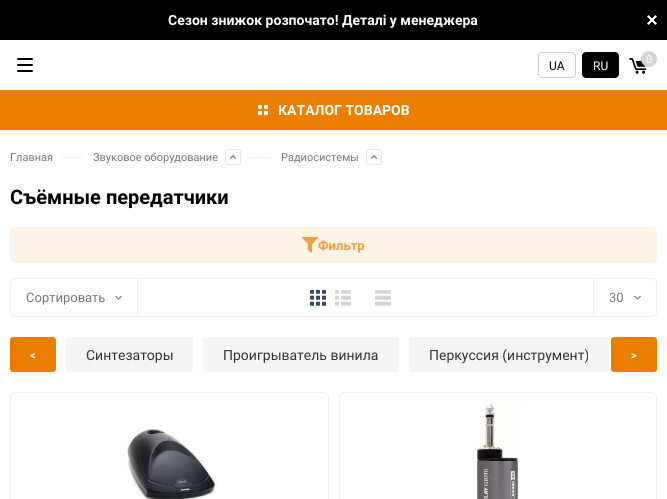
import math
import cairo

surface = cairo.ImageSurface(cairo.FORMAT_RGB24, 667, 499)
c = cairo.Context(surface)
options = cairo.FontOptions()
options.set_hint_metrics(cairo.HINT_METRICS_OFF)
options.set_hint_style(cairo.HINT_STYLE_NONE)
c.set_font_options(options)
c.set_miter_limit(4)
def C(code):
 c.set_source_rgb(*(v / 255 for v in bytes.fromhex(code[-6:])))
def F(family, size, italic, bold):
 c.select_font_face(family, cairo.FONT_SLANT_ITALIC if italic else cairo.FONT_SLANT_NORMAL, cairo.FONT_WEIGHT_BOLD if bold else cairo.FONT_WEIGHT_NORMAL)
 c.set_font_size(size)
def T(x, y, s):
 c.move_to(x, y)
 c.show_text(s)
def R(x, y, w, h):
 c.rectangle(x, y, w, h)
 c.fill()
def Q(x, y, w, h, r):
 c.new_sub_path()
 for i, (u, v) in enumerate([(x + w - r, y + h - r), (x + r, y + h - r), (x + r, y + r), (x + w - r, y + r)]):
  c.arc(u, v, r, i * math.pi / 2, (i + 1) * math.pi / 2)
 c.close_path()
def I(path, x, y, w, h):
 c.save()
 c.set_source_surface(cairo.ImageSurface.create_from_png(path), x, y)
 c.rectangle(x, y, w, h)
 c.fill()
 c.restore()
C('ffffff')
c.paint()
C('000000')
R(0,0,667,40)
F('Roboto',14,0,1)
C('ffffff')
T(168,25,'Сезон знижок розпочато! Деталі у менеджера')
c.new_path()
c.move_to(655.5,15)
c.line_to(657,16.5)
c.line_to(648.5,25)
c.line_to(647,23.5)
c.close_path()
c.fill()
c.new_path()
c.move_to(647,16.5)
c.line_to(648.5,15)
c.line_to(657,23.5)
c.line_to(655.5,25)
c.close_path()
c.fill()
C('f0f0f0')
R(0,130,667,1)
C('000000')
Q(17,64,16,2,1)
c.fill()
Q(17,58,16,2,1)
c.fill()
Q(17,70,16,2,1)
c.fill()
I('1.png',629,58,18,16)
C('d5d5d5')
c.arc(649,59,8,0,2 * math.pi)
c.fill()
F('Roboto',11,0,0)
C('ffffff')
T(646,63,'0')
Q(538.5,52.5,37,25,3.5)
C('cccccc')
c.set_line_width(1)
c.stroke()
F('Roboto',12,0,0)
C('000000')
T(549,70,'UA')
Q(582.5,52.5,36,25,3.5)
c.fill_preserve()
c.stroke()
C('ffffff')
T(593,70,'RU')
C('e97e00')
R(0,90,667,40)
I('2.png',258,105,10,10)
F('Roboto',14,0,1)
C('ffffff')
T(278,115,'КАТАЛОГ ТОВАРОВ')
F('Roboto',11,0,0)
C('777777')
T(10,161,'Главная')
C('f0f0f0')
R(62,157,20,1)
C('777777')
T(93,161,'Звуковое оборудование')
Q(225.5,149.5,15,15,2.5)
C('e7e7e7')
c.stroke()
I('3.png',230,155,6,4)
C('f0f0f0')
R(250,157,20,1)
C('777777')
T(281,161,'Радиосистемы')
Q(366.5,149.5,15,15,2.5)
C('e7e7e7')
c.stroke()
I('3.png',371,155,6,4)
F('Roboto',20,0,1)
C('000000')
T(10,204,'Съёмные передатчики')
C('fdf2e6')
Q(10,227,647,36,5)
c.fill()
I('4.png',302,237,16,16)
F('Roboto',13,0,1)
C('efa145')
T(318,250,'Фильтр')
Q(10.5,278.5,646,38,4.5)
C('f0f0f0')
c.stroke()
R(137,279,1,38)
F('Roboto',13,0,0)
C('777777')
T(26,302,'Сортировать')
I('5.png',115,296,7,4)
I('6.png',310,290,16,16)
I('7.png',335,290,16,16)
I('8.png',375,290,16,16)
C('f0f0f0')
R(593,279,1,38)
C('777777')
T(609,302,'30')
I('9.png',634,296,7,4)
C('e97e00')
Q(10,337,46,35,3)
c.fill()
F('Roboto',11,0,1)
C('ffffff')
T(30,359,'<')
C('f5f5f5')
Q(66,337,127,35,3)
c.fill()
F('Roboto',14,0,0)
C('333333')
T(86,360,'Синтезаторы')
C('f5f5f5')
Q(203,337,196,35,3)
c.fill()
C('333333')
T(223,360,'Проигрыватель винила')
C('f5f5f5')
Q(409,337,200,35,3)
c.fill()
C('333333')
T(429,360,'Перкуссия (инструмент)')
C('e97e00')
Q(611,337,46,35,3)
c.fill()
F('Roboto',11,0,1)
C('ffffff')
T(631,359,'>')
Q(10.5,392.5,318,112,4.5)
C('f0f0f0')
c.stroke()
I('10.png',127,429,90,70)
Q(339.5,392.5,317,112,4.5)
c.stroke()
I('11.png',475,402,45,97)
surface.write_to_png('o.png')
